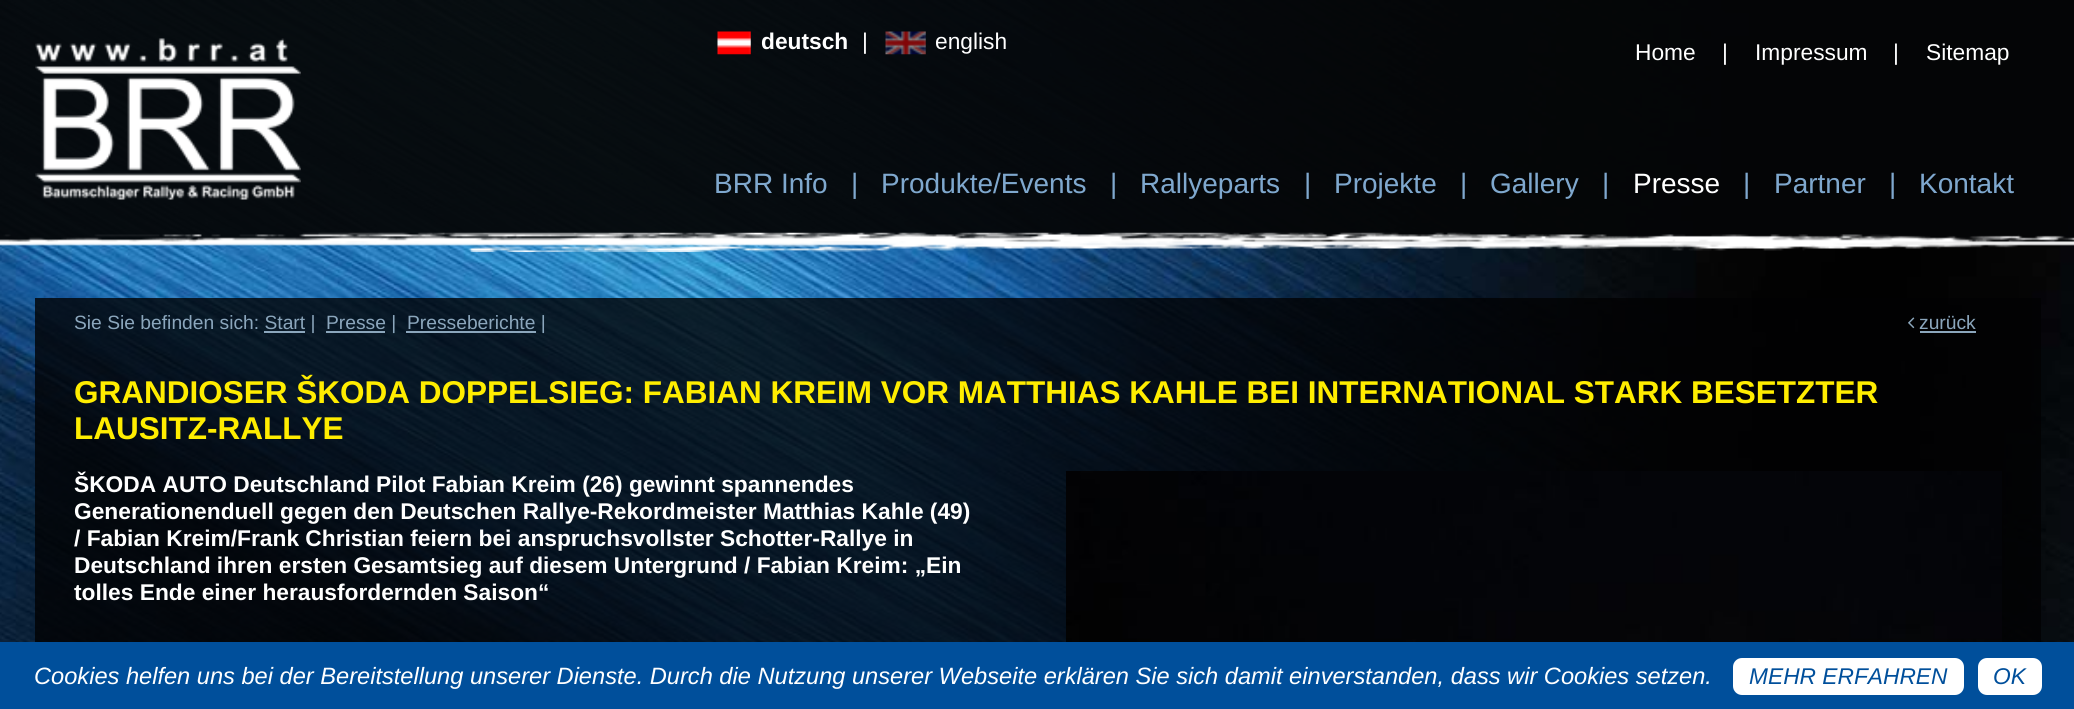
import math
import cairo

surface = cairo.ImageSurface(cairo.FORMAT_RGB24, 2074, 709)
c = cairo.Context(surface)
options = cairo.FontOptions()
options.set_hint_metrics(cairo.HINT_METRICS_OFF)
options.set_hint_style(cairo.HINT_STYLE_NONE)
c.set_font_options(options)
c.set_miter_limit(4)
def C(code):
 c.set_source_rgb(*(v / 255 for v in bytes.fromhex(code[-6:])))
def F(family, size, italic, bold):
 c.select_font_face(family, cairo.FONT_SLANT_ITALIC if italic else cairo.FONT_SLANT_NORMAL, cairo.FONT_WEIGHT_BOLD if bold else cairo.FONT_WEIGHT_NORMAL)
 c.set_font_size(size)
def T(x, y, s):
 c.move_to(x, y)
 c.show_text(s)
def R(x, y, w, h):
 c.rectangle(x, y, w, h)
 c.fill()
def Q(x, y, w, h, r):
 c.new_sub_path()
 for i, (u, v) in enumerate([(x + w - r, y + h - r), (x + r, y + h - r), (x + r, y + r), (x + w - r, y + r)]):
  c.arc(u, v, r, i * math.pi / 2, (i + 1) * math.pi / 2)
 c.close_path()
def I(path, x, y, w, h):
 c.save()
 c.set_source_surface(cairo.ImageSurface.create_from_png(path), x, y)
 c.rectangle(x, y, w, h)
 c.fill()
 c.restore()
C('ffffff')
c.paint()
I('1.png',0,0,2074,642)
c.set_source_rgba(0.02,0.024,0.027,0.95)
R(0,0,2074,242)
I('2.png',35,38,266,162)
I('3.png',717,31,34,24)
F('Liberation Sans',22.75,0,1)
C('ffffff')
T(761,49,'deutsch')
F('Liberation Sans',22.75,0,0)
T(862,49,'|')
I('4.png',885,31,41,24)
T(935,49,'english')
T(1635,60,'Home')
T(1722,60,'|')
T(1755,60,'Impressum')
T(1893,60,'|')
T(1926,60,'Sitemap')
F('Liberation Sans',28,0,0)
C('7fa8ce')
T(714,193,'BRR Info')
T(851,193,'|')
T(881,193,'Produkte/Events')
T(1110,193,'|')
T(1140,193,'Rallyeparts')
T(1304,193,'|')
T(1334,193,'Projekte')
T(1460,193,'|')
T(1490,193,'Gallery')
T(1602,193,'|')
C('ffffff')
T(1633,193,'Presse')
C('7fa8ce')
T(1743,193,'|')
T(1774,193,'Partner')
T(1889,193,'|')
T(1919,193,'Kontakt')
I('5.png',0,232,2074,20)
c.set_source_rgba(0.008,0.008,0.012,0.8)
R(35,298,2006,344)
F('Liberation Sans',19.25,0,0)
C('8ba6bc')
T(74,329,'Sie Sie befinden sich: Start |')
R(326,331,59,2)
T(326,329,'Presse |')
R(406,331,130,2)
T(407,329,'Presseberichte |')
R(264,331,41,2)
I('6.png',1908,317,7,12)
T(1919,329,'zurück')
R(1920,331,56,2)
F('Liberation Sans',31.5,0,1)
C('ffed00')
T(74,403,'GRANDIOSER ŠKODA DOPPELSIEG: FABIAN KREIM VOR MATTHIAS KAHLE BEI INTERNATIONAL STARK BESETZTER')
T(74,439,'LAUSITZ-RALLYE')
F('Liberation Sans',22.75,0,1)
C('ffffff')
T(74,492,'ŠKODA AUTO Deutschland Pilot Fabian Kreim (26) gewinnt spannendes')
T(74,519,'Generationenduell gegen den Deutschen Rallye-Rekordmeister Matthias Kahle (49)')
T(74,546,'/ Fabian Kreim/Frank Christian feiern bei anspruchsvollster Schotter-Rallye in')
T(74,573,'Deutschland ihren ersten Gesamtsieg auf diesem Untergrund / Fabian Kreim: „Ein')
T(74,600,'tolles Ende einer herausfordernden Saison“')
I('7.png',1066,471,936,171)
C('004f9b')
R(0,642,2074,67)
F('Liberation Sans',23.62,1,0)
C('ffffff')
T(34,684,'Cookies helfen uns bei der Bereitstellung unserer Dienste. Durch die Nutzung unserer Webseite erklären Sie sich damit einverstanden, dass wir Cookies setzen.')
Q(1733,658,231,37,9)
c.fill()
F('Liberation Sans',22.75,1,0)
C('004f9b')
T(1749,684,'MEHR ERFAHREN')
C('ffffff')
Q(1978,658,64,37,9)
c.fill()
C('004f9b')
T(1993,684,'OK')
surface.write_to_png('o.png')
